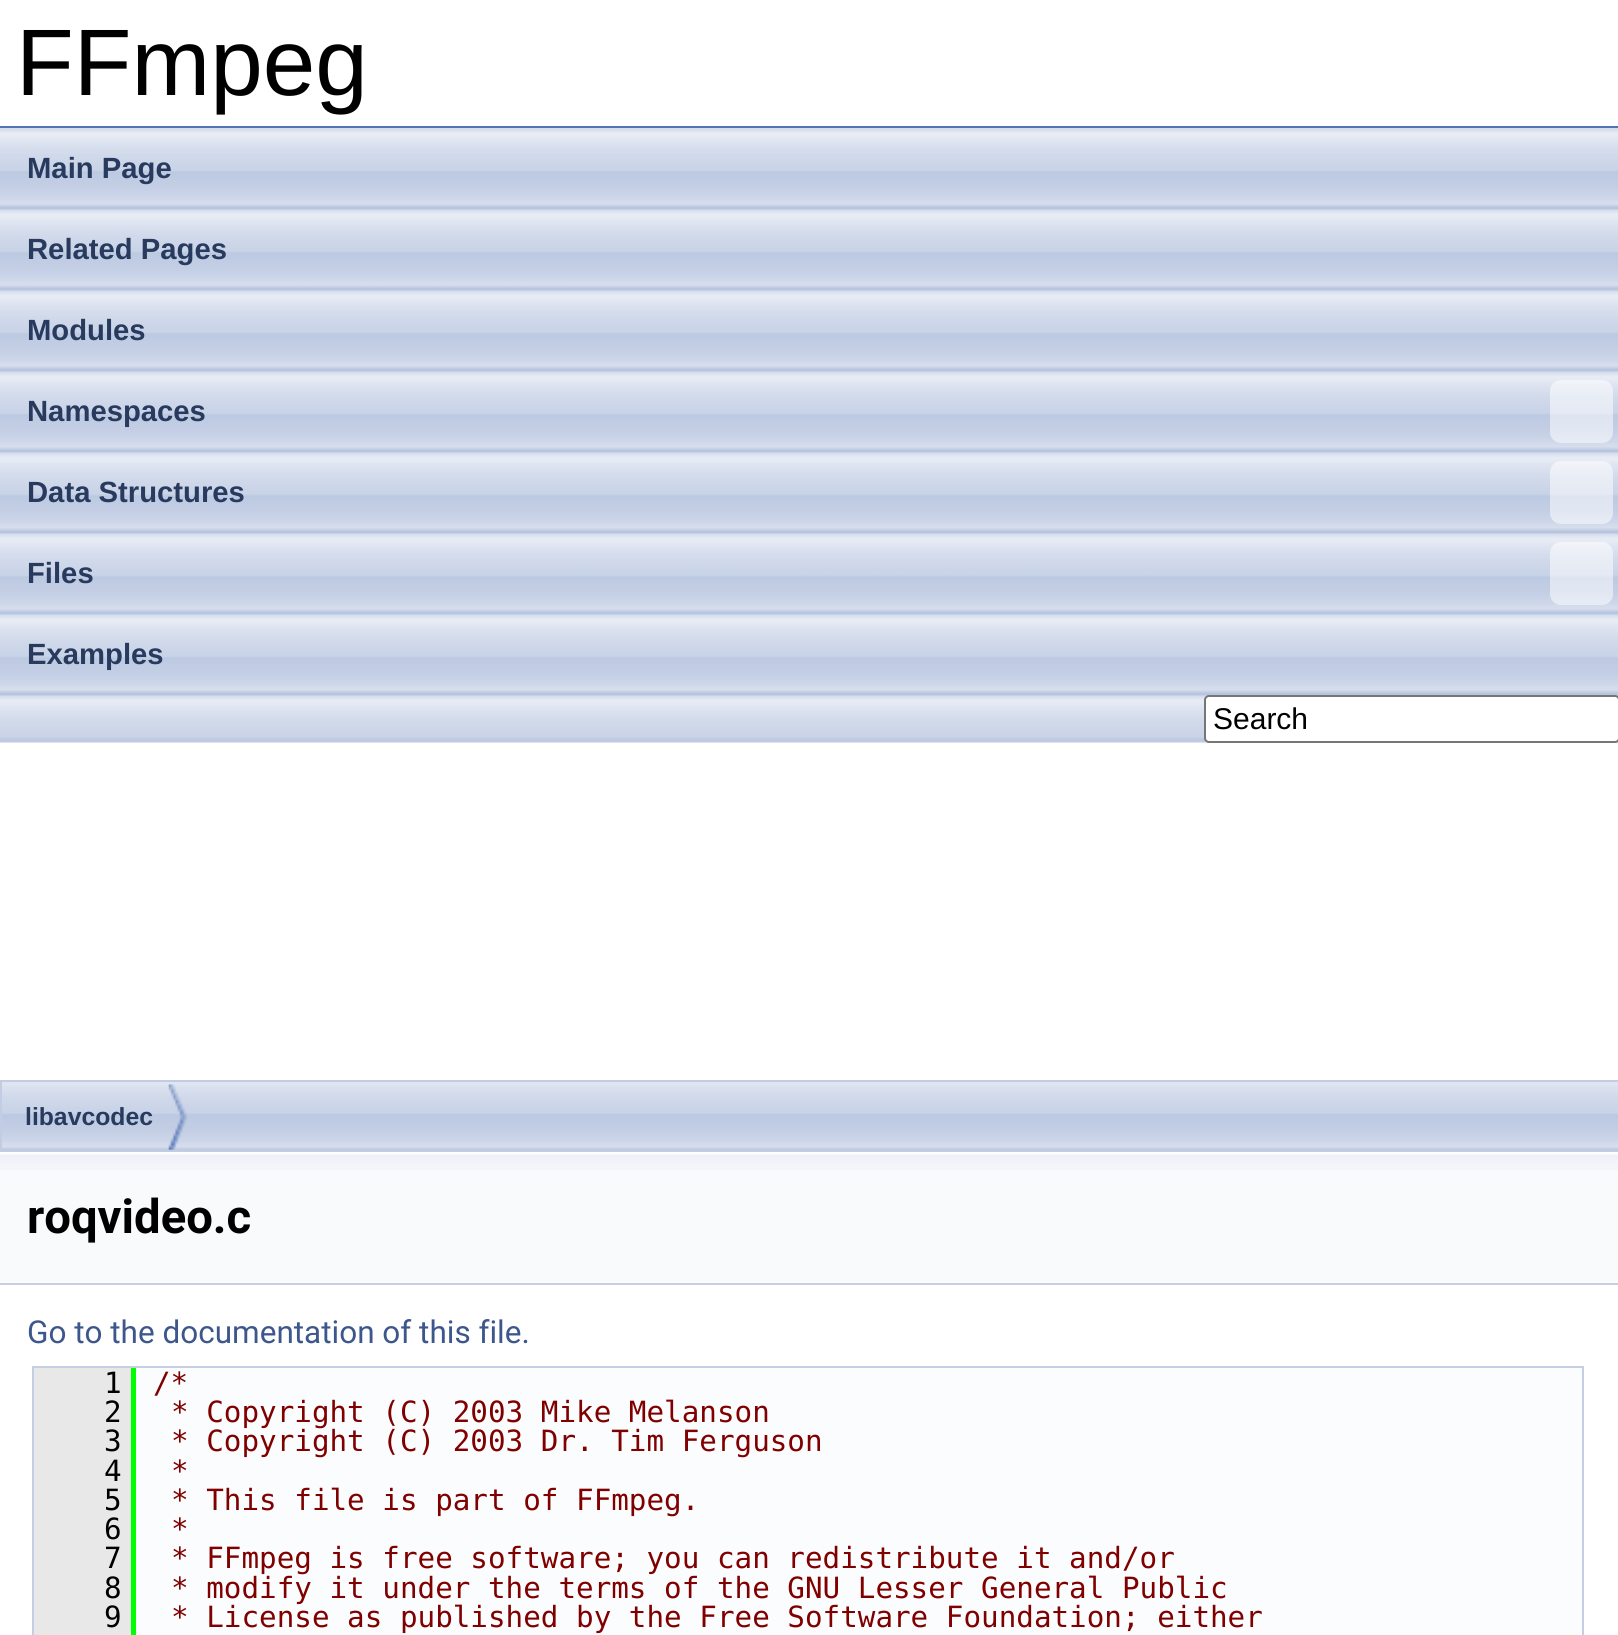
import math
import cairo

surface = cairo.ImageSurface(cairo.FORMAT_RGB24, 1618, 1635)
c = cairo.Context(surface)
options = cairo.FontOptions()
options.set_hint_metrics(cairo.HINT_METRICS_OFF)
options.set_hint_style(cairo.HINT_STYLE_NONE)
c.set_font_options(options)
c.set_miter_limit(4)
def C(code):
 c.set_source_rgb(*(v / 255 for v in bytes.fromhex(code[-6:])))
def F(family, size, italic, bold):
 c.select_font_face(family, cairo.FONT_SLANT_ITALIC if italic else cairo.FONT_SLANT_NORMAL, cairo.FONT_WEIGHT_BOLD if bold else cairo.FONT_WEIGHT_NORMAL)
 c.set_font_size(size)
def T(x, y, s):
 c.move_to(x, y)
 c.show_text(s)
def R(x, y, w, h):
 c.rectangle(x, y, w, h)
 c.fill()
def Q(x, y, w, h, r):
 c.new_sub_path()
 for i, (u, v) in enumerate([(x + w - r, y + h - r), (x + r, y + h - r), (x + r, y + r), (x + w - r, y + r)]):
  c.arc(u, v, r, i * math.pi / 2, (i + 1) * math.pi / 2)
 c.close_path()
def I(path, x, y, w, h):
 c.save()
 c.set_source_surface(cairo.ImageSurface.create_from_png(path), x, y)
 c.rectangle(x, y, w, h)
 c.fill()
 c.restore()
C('ffffff')
c.paint()
C('5373b4')
R(0,126,1618,2)
F('Liberation Sans',94.5,0,0)
C('000000')
T(16,95,'FFmpeg')
I('1.png',0,128,1618,615)
F('Liberation Sans',29.25,0,1)
C('283a5d')
T(27,178,'Main Page')
T(27,259,'Related Pages')
T(27,340,'Modules')
T(27,421,'Namespaces')
c.set_source_rgba(1,1,1,0.5)
Q(1550,380,63,63,11)
c.fill()
C('283a5d')
T(27,502,'Data Structures')
c.set_source_rgba(1,1,1,0.5)
Q(1550,461,63,63,11)
c.fill()
C('283a5d')
T(27,583,'Files')
c.set_source_rgba(1,1,1,0.5)
Q(1550,542,63,63,11)
c.fill()
C('283a5d')
T(27,664,'Examples')
C('ffffff')
Q(1205,696,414,46,4)
c.fill_preserve()
C('767676')
c.stroke()
F('Liberation Sans',30,0,0)
C('000000')
T(1213,729,'Search')
I('2.png',2,1082,1616,68)
c.rectangle(1,1081,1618,70)
C('c2cde4')
c.stroke()
I('3.png',168,1084,19,66)
F('Liberation Sans',24.75,0,1)
C('283a5d')
T(25,1125,'libavcodec')
C('f9fafc')
R(0,1170,1618,113)
I('4.png',0,1152,1618,18)
C('c4cfe5')
R(0,1283,1618,2)
F('Roboto',47.25,0,1)
C('000000')
T(27,1233,'roqvideo.c')
F('Roboto',31.5,0,0)
C('3d578c')
T(27,1343,'Go to the documentation of this file.')
C('fbfcfd')
R(136,1368,1446,267)
c.rectangle(33,1367,1550,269)
C('c4cfe5')
c.stroke()
C('e8e8e8')
R(34,1368,97,261)
F('DejaVu Sans Mono',29.25,0,0)
C('000000')
T(104,1393,'1')
C('00ff00')
R(131,1368,5,266)
C('800000')
T(153,1393,'/*')
C('000000')
T(104,1422,'2')
C('800000')
T(171,1422,'* Copyright (C) 2003 Mike Melanson')
C('000000')
T(104,1451,'3')
C('800000')
T(171,1451,'* Copyright (C) 2003 Dr. Tim Ferguson')
C('000000')
T(104,1481,'4')
C('800000')
T(171,1481,'*')
C('000000')
T(104,1510,'5')
C('800000')
T(171,1510,'* This file is part of FFmpeg.')
C('000000')
T(104,1539,'6')
C('800000')
T(171,1539,'*')
C('000000')
T(104,1568,'7')
C('800000')
T(171,1568,'* FFmpeg is free software; you can redistribute it and/or')
C('000000')
T(104,1598,'8')
C('800000')
T(171,1598,'* modify it under the terms of the GNU Lesser General Public')
C('e8e8e8')
R(34,1629,101,6)
C('00ff00')
R(131,1629,5,6)
C('000000')
T(104,1627,'9')
C('800000')
T(171,1627,'* License as published by the Free Software Foundation; either')
surface.write_to_png('o.png')
